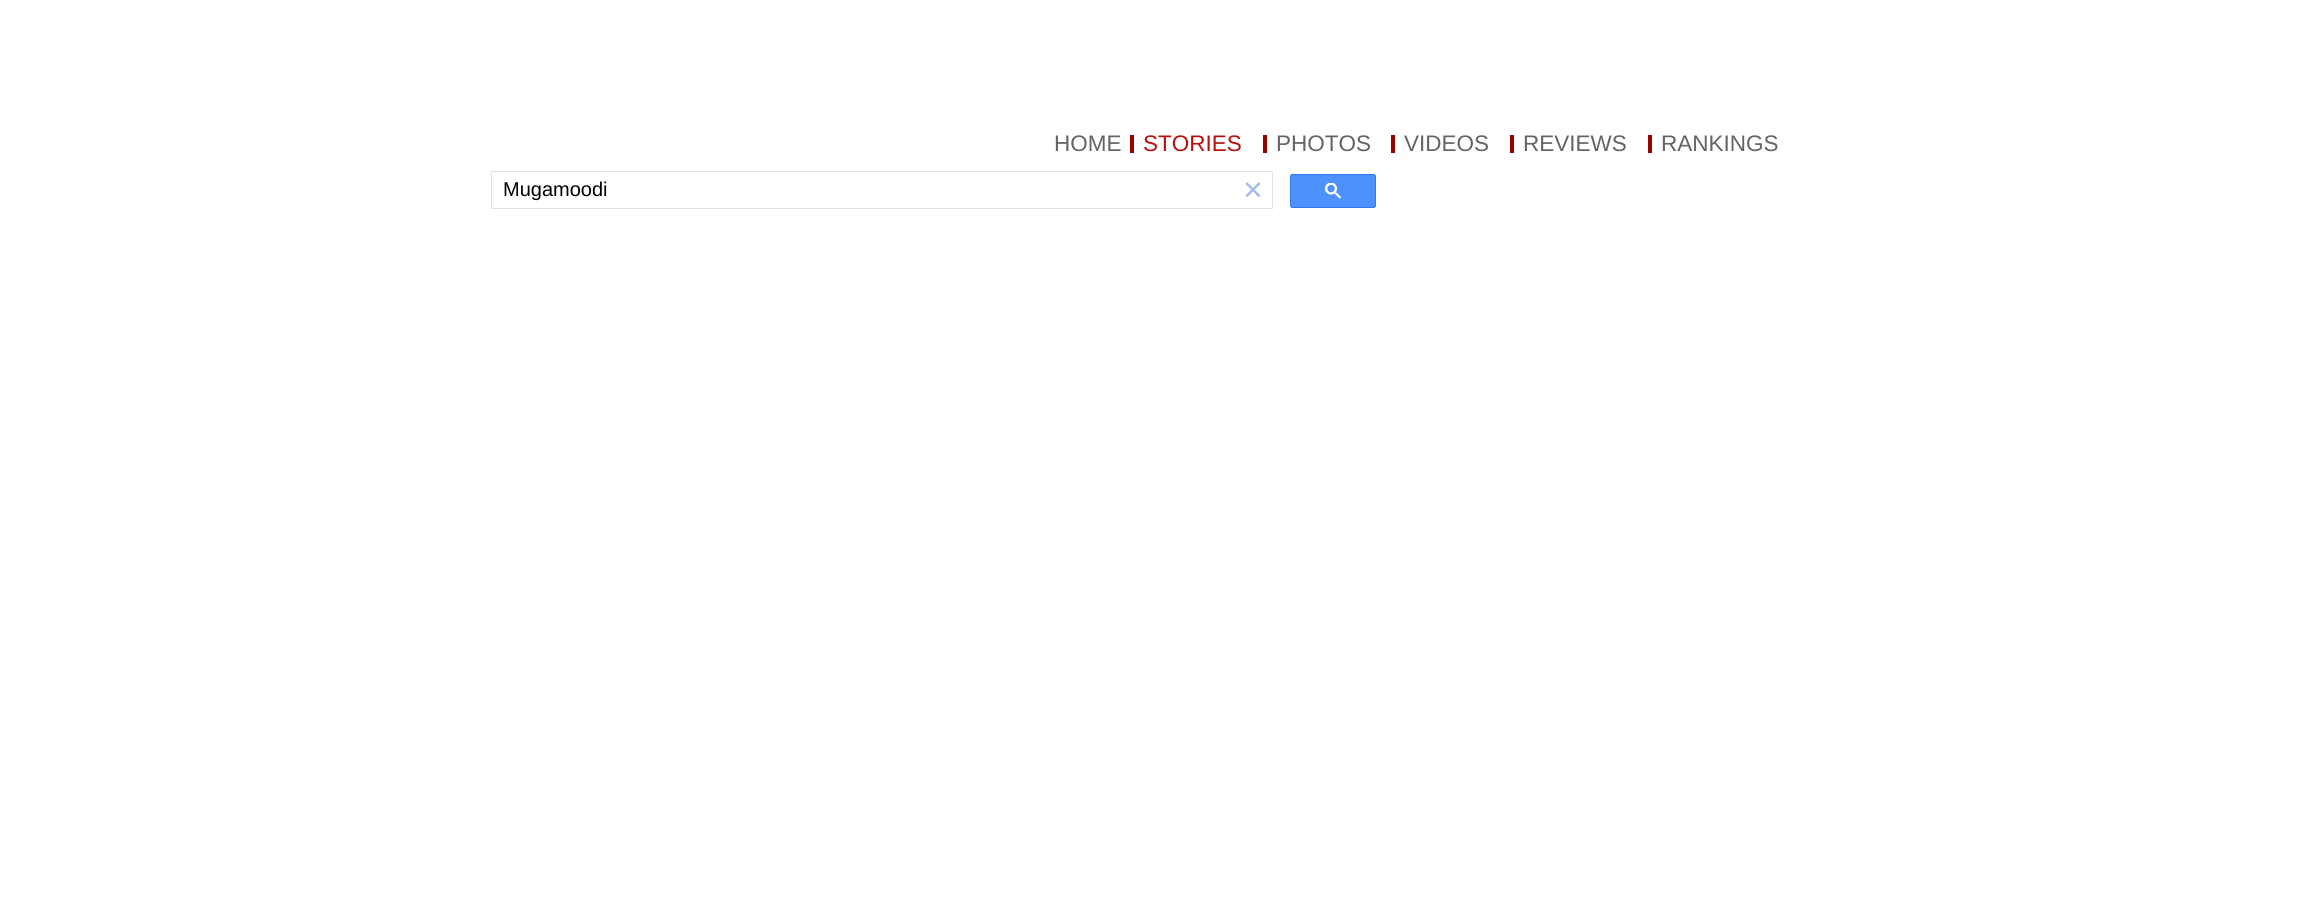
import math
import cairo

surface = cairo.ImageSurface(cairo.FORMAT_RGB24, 2299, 903)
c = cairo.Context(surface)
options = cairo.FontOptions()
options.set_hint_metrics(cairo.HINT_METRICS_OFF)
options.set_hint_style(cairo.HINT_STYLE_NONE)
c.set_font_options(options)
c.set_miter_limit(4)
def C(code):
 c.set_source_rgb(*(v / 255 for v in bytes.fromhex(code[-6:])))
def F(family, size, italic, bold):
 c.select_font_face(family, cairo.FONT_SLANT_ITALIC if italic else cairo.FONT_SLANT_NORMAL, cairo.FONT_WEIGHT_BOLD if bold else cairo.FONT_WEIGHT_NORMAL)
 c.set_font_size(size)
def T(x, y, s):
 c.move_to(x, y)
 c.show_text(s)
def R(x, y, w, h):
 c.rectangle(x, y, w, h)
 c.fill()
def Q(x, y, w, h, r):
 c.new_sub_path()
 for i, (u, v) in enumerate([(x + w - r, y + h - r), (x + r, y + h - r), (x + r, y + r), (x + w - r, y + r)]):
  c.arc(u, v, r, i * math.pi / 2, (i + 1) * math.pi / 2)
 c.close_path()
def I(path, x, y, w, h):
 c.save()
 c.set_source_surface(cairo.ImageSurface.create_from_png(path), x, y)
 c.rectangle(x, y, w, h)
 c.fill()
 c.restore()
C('ffffff')
c.paint()
C('990000')
R(1130,135,4,18)
F('Liberation Sans',22.5,0,0)
C('646464')
T(1054,151,'HOME')
C('990000')
R(1263,135,4,18)
C('b6110c')
T(1143,151,'STORIES')
C('990000')
R(1391,135,4,18)
C('646464')
T(1276,151,'PHOTOS')
C('990000')
R(1510,135,4,18)
C('646464')
T(1404,151,'VIDEOS')
C('990000')
R(1648,135,4,18)
C('646464')
T(1523,151,'REVIEWS')
T(1661,151,'RANKINGS')
c.rectangle(491.5,171.5,781,37)
C('dfe1e5')
c.set_line_width(1)
c.stroke()
F('Liberation Sans',20,0,0)
C('000000')
T(503,196,'Mugamoodi')
F('Liberation Sans',34,0,0)
C('a1b9ed')
T(1243,201,'×')
C('4d90fe')
Q(1290.5,174.5,85,33,2)
c.fill_preserve()
C('3079ed')
c.stroke()
I('1.png',1325,183,16,16)
surface.write_to_png('o.png')
